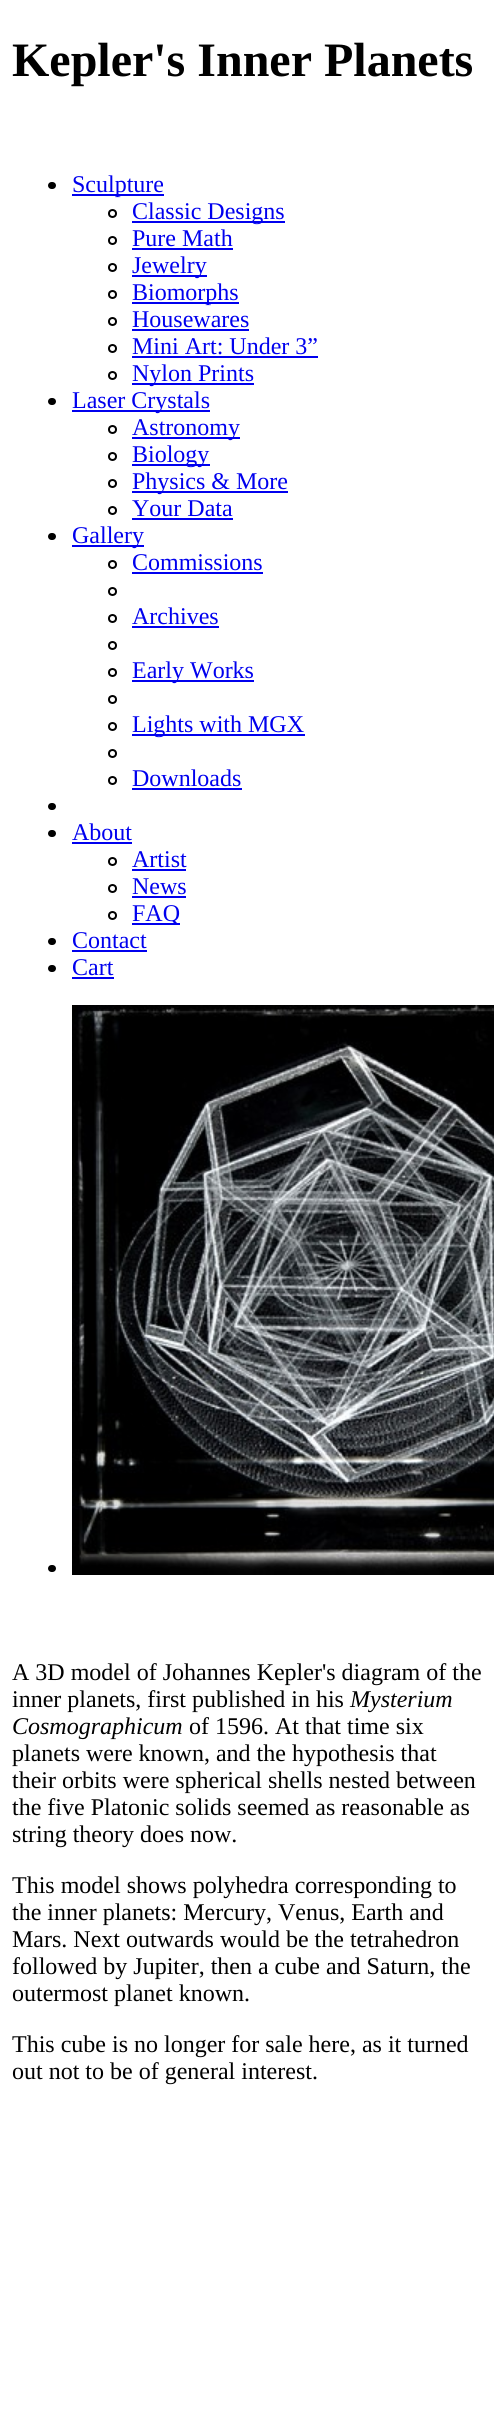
import math
import cairo

surface = cairo.ImageSurface(cairo.FORMAT_RGB24, 494, 2434)
c = cairo.Context(surface)
options = cairo.FontOptions()
options.set_hint_metrics(cairo.HINT_METRICS_OFF)
options.set_hint_style(cairo.HINT_STYLE_NONE)
c.set_font_options(options)
c.set_miter_limit(4)
def C(code):
 c.set_source_rgb(*(v / 255 for v in bytes.fromhex(code[-6:])))
def F(family, size, italic, bold):
 c.select_font_face(family, cairo.FONT_SLANT_ITALIC if italic else cairo.FONT_SLANT_NORMAL, cairo.FONT_WEIGHT_BOLD if bold else cairo.FONT_WEIGHT_NORMAL)
 c.set_font_size(size)
def T(x, y, s):
 c.move_to(x, y)
 c.show_text(s)
def R(x, y, w, h):
 c.rectangle(x, y, w, h)
 c.fill()
def Q(x, y, w, h, r):
 c.new_sub_path()
 for i, (u, v) in enumerate([(x + w - r, y + h - r), (x + r, y + h - r), (x + r, y + r), (x + w - r, y + r)]):
  c.arc(u, v, r, i * math.pi / 2, (i + 1) * math.pi / 2)
 c.close_path()
def I(path, x, y, w, h):
 c.save()
 c.set_source_surface(cairo.ImageSurface.create_from_png(path), x, y)
 c.rectangle(x, y, w, h)
 c.fill()
 c.restore()
C('ffffff')
c.paint()
F('Liberation Serif',48,0,1)
C('000000')
T(12,76,'Kepler\'s Inner Planets')
Q(48,182,8,7,3.5)
c.fill()
C('0000ee')
R(72,194,92,2)
F('Liberation Serif',24,0,0)
T(72,192,'Sculpture')
c.new_path()
c.arc(112.5,213.5,3.5,0,2 * math.pi)
C('000000')
c.stroke()
C('0000ee')
R(132,221,153,2)
T(132,219,'Classic Designs')
c.new_path()
c.arc(112.5,240.5,3.5,0,2 * math.pi)
C('000000')
c.stroke()
C('0000ee')
T(132,246,'Pure Math')
R(132,248,101,2)
c.new_path()
c.arc(112.5,267.5,3.5,0,2 * math.pi)
C('000000')
c.stroke()
C('0000ee')
R(132,275,75,2)
T(132,273,'Jewelry')
c.new_path()
c.arc(112.5,294.5,3.5,0,2 * math.pi)
C('000000')
c.stroke()
C('0000ee')
R(132,302,107,2)
T(132,300,'Biomorphs')
c.new_path()
c.arc(112.5,321.5,3.5,0,2 * math.pi)
C('000000')
c.stroke()
C('0000ee')
T(132,327,'Housewares')
R(132,329,117,2)
c.new_path()
c.arc(112.5,348.5,3.5,0,2 * math.pi)
C('000000')
c.stroke()
C('0000ee')
T(132,354,'Mini Art: Under 3”')
R(132,356,186,2)
c.new_path()
c.arc(112.5,375.5,3.5,0,2 * math.pi)
C('000000')
c.stroke()
C('0000ee')
R(132,383,122,2)
T(132,381,'Nylon Prints')
C('000000')
Q(48,398,8,7,3.5)
c.fill()
C('0000ee')
R(72,410,138,2)
T(72,408,'Laser Crystals')
c.new_path()
c.arc(112.5,429.5,3.5,0,2 * math.pi)
C('000000')
c.stroke()
C('0000ee')
R(132,437,108,2)
T(132,435,'Astronomy')
c.new_path()
c.arc(112.5,456.5,3.5,0,2 * math.pi)
C('000000')
c.stroke()
C('0000ee')
R(132,464,78,2)
T(132,462,'Biology')
c.new_path()
c.arc(112.5,483.5,3.5,0,2 * math.pi)
C('000000')
c.stroke()
C('0000ee')
R(132,491,156,2)
T(132,489,'Physics & More')
c.new_path()
c.arc(112.5,510.5,3.5,0,2 * math.pi)
C('000000')
c.stroke()
C('0000ee')
T(132,516,'Your Data')
R(132,518,101,2)
C('000000')
Q(48,533,8,7,3.5)
c.fill()
C('0000ee')
R(72,545,72,2)
T(72,543,'Gallery')
c.new_path()
c.arc(112.5,564.5,3.5,0,2 * math.pi)
C('000000')
c.stroke()
C('0000ee')
T(132,570,'Commissions')
R(132,572,131,2)
c.new_path()
c.arc(112.5,591.5,3.5,0,2 * math.pi)
C('000000')
c.stroke()
c.arc(112.5,618.5,3.5,0,2 * math.pi)
c.stroke()
C('0000ee')
T(132,624,'Archives')
R(132,626,87,2)
c.new_path()
c.arc(112.5,645.5,3.5,0,2 * math.pi)
C('000000')
c.stroke()
c.arc(112.5,672.5,3.5,0,2 * math.pi)
c.stroke()
C('0000ee')
R(132,680,122,2)
T(132,678,'Early Works')
c.new_path()
c.arc(112.5,699.5,3.5,0,2 * math.pi)
C('000000')
c.stroke()
c.arc(112.5,726.5,3.5,0,2 * math.pi)
c.stroke()
C('0000ee')
R(132,734,173,2)
T(132,732,'Lights with MGX')
c.new_path()
c.arc(112.5,753.5,3.5,0,2 * math.pi)
C('000000')
c.stroke()
c.arc(112.5,780.5,3.5,0,2 * math.pi)
c.stroke()
C('0000ee')
T(132,786,'Downloads')
R(132,788,110,2)
C('000000')
Q(48,803,8,7,3.5)
c.fill()
Q(48,830,8,7,3.5)
c.fill()
C('0000ee')
T(72,840,'About')
R(72,842,60,2)
c.new_path()
c.arc(112.5,861.5,3.5,0,2 * math.pi)
C('000000')
c.stroke()
C('0000ee')
T(132,867,'Artist')
R(132,869,54,2)
c.new_path()
c.arc(112.5,888.5,3.5,0,2 * math.pi)
C('000000')
c.stroke()
C('0000ee')
T(132,894,'News')
R(132,896,54,2)
c.new_path()
c.arc(112.5,915.5,3.5,0,2 * math.pi)
C('000000')
c.stroke()
C('0000ee')
R(132,923,48,2)
T(132,921,'FAQ')
C('000000')
Q(48,938,8,7,3.5)
c.fill()
C('0000ee')
T(72,948,'Contact')
R(72,950,75,2)
C('000000')
Q(48,965,8,7,3.5)
c.fill()
C('0000ee')
T(72,975,'Cart')
R(72,977,42,2)
C('000000')
Q(48,1565,8,7,3.5)
c.fill()
I('1.png',72,1005,422,570)
T(12,1680,'A 3D model of Johannes Kepler\'s diagram of the')
T(12,1707,'inner planets, first published in his')
F('Liberation Serif',24,1,0)
T(350,1707,'Mysterium')
T(12,1734,'Cosmographicum')
F('Liberation Serif',24,0,0)
T(189,1734,'of 1596. At that time six')
T(12,1761,'planets were known, and the hypothesis that')
T(12,1788,'their orbits were spherical shells nested between')
T(12,1815,'the five Platonic solids seemed as reasonable as')
T(12,1842,'string theory does now.')
T(12,1893,'This model shows polyhedra corresponding to')
T(12,1920,'the inner planets: Mercury, Venus, Earth and')
T(12,1947,'Mars. Next outwards would be the tetrahedron')
T(12,1974,'followed by Jupiter, then a cube and Saturn, the')
T(12,2001,'outermost planet known.')
T(12,2052,'This cube is no longer for sale here, as it turned')
T(12,2079,'out not to be of general interest.')
surface.write_to_png('o.png')
